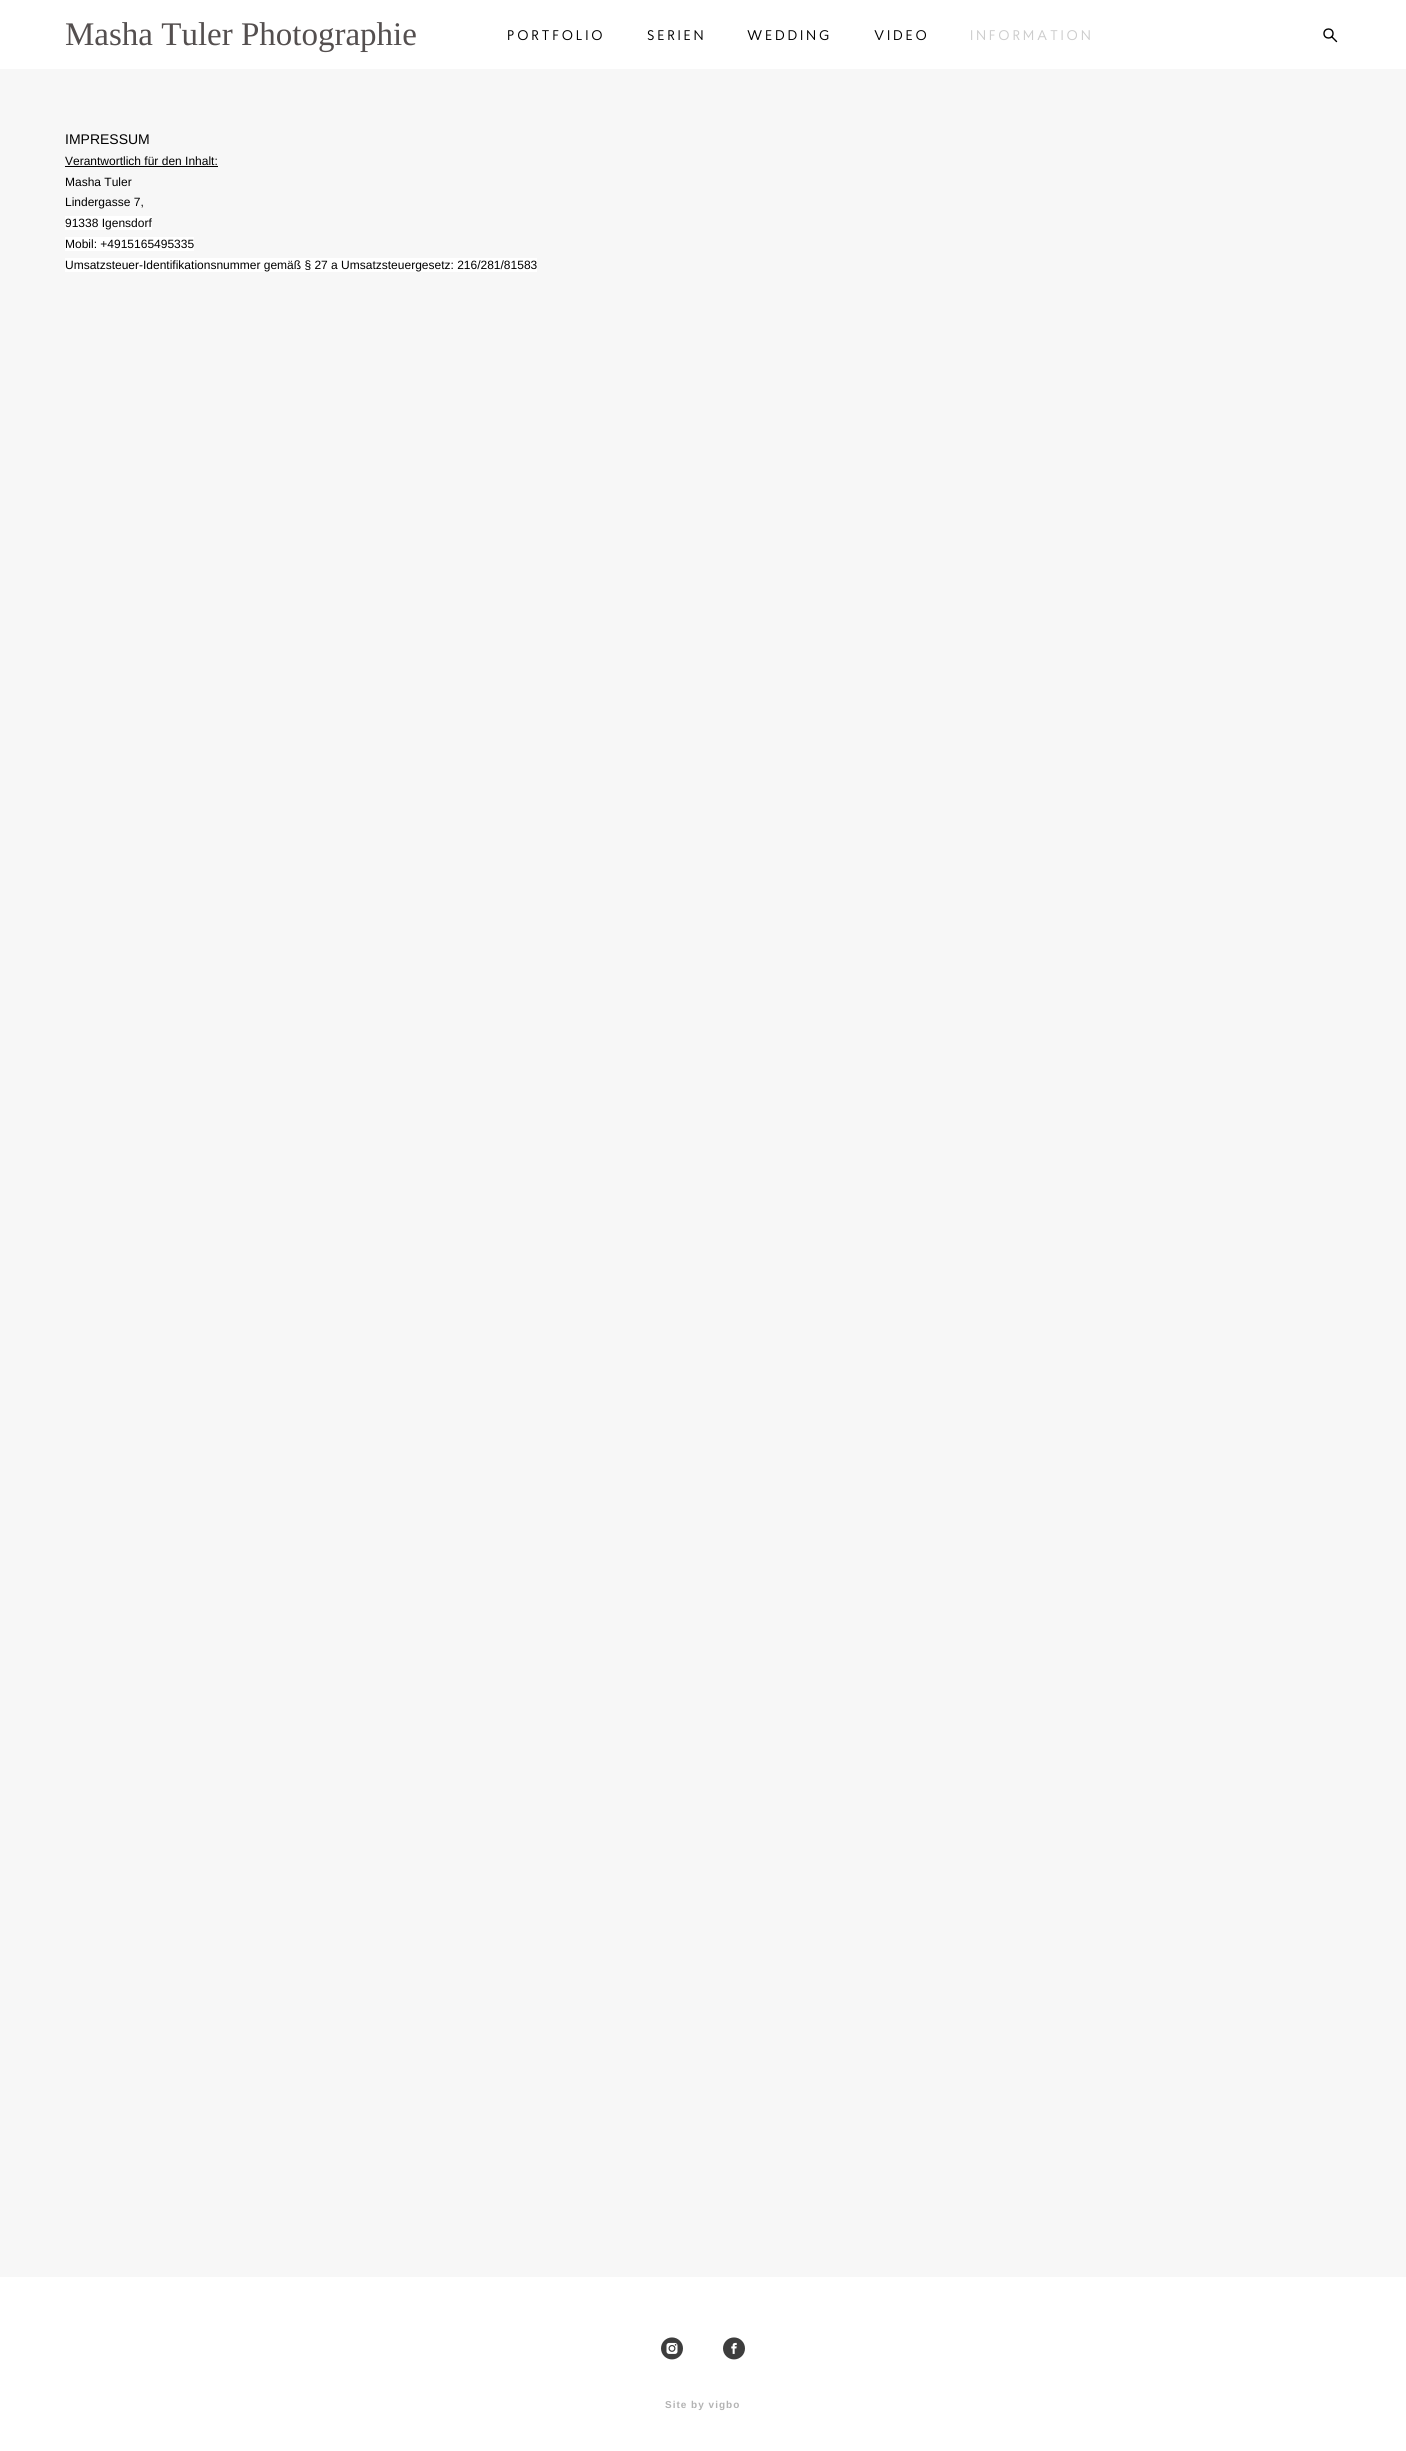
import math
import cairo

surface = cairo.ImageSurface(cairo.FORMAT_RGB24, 1406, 2451)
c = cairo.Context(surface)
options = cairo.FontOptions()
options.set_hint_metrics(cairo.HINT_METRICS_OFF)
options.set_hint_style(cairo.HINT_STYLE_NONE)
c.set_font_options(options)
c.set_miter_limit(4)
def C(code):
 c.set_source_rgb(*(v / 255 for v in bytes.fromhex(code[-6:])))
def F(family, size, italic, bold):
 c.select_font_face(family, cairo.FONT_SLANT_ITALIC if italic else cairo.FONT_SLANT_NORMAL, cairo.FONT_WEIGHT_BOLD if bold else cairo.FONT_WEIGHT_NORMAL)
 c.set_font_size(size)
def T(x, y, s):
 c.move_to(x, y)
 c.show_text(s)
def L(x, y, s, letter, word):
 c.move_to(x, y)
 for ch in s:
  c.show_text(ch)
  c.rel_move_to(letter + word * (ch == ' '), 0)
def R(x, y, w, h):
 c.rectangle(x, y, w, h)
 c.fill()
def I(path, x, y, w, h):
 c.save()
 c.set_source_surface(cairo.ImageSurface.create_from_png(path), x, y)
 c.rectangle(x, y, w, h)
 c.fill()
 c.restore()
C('f7f7f7')
c.paint()
C('ffffff')
R(0,0,1406,69)
F('Liberation Serif',33,0,0)
C('544f4f')
T(65,45,'Masha Tuler Photographie')
F('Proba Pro',14,0,0)
C('000000')
L(507,40,'PORTFOLIO',2.75,0)
L(647,40,'SERIEN',2.75,0)
L(747,40,'WEDDING',2.75,0)
L(874,40,'VIDEO',2.75,0)
C('cccccc')
L(970,40,'INFORMATION',2.75,0)
c.new_path()
c.arc(1328.5,33.5,4.5,0,2 * math.pi)
C('000000')
c.set_line_width(1.4)
c.stroke()
c.new_path()
c.move_to(1331.5,36.5)
c.line_to(1336.5,41.5)
c.set_line_cap(cairo.LINE_CAP_ROUND)
c.set_line_join(cairo.LINE_JOIN_ROUND)
c.stroke()
F('Liberation Sans',14,0,0)
T(65,144,'IMPRESSUM')
F('Liberation Sans',12,0,0)
T(65,165,'Verantwortlich für den Inhalt:')
R(65,166,153,1)
T(65,186,'Masha Tuler')
T(65,206,'Lindergasse 7,')
C('ffffff')
R(65,216,87,14)
C('000000')
T(65,227,'91338 Igensdorf')
C('ffffff')
R(65,237,129,14)
C('000000')
T(65,248,'Mobil: +4915165495335')
C('ffffff')
R(65,258,472,14)
C('000000')
T(65,269,'Umsatzsteuer-Identifikationsnummer gemäß § 27 a Umsatzsteuergesetz: 216/281/81583')
C('ffffff')
R(0,2277,1406,174)
I('1.png',661,2337,22,23)
I('2.png',723,2337,22,23)
F('Liberation Sans',10,0,1)
C('b3b3b3')
L(665,2408,'Site by vigbo',1,0)
surface.write_to_png('o.png')
